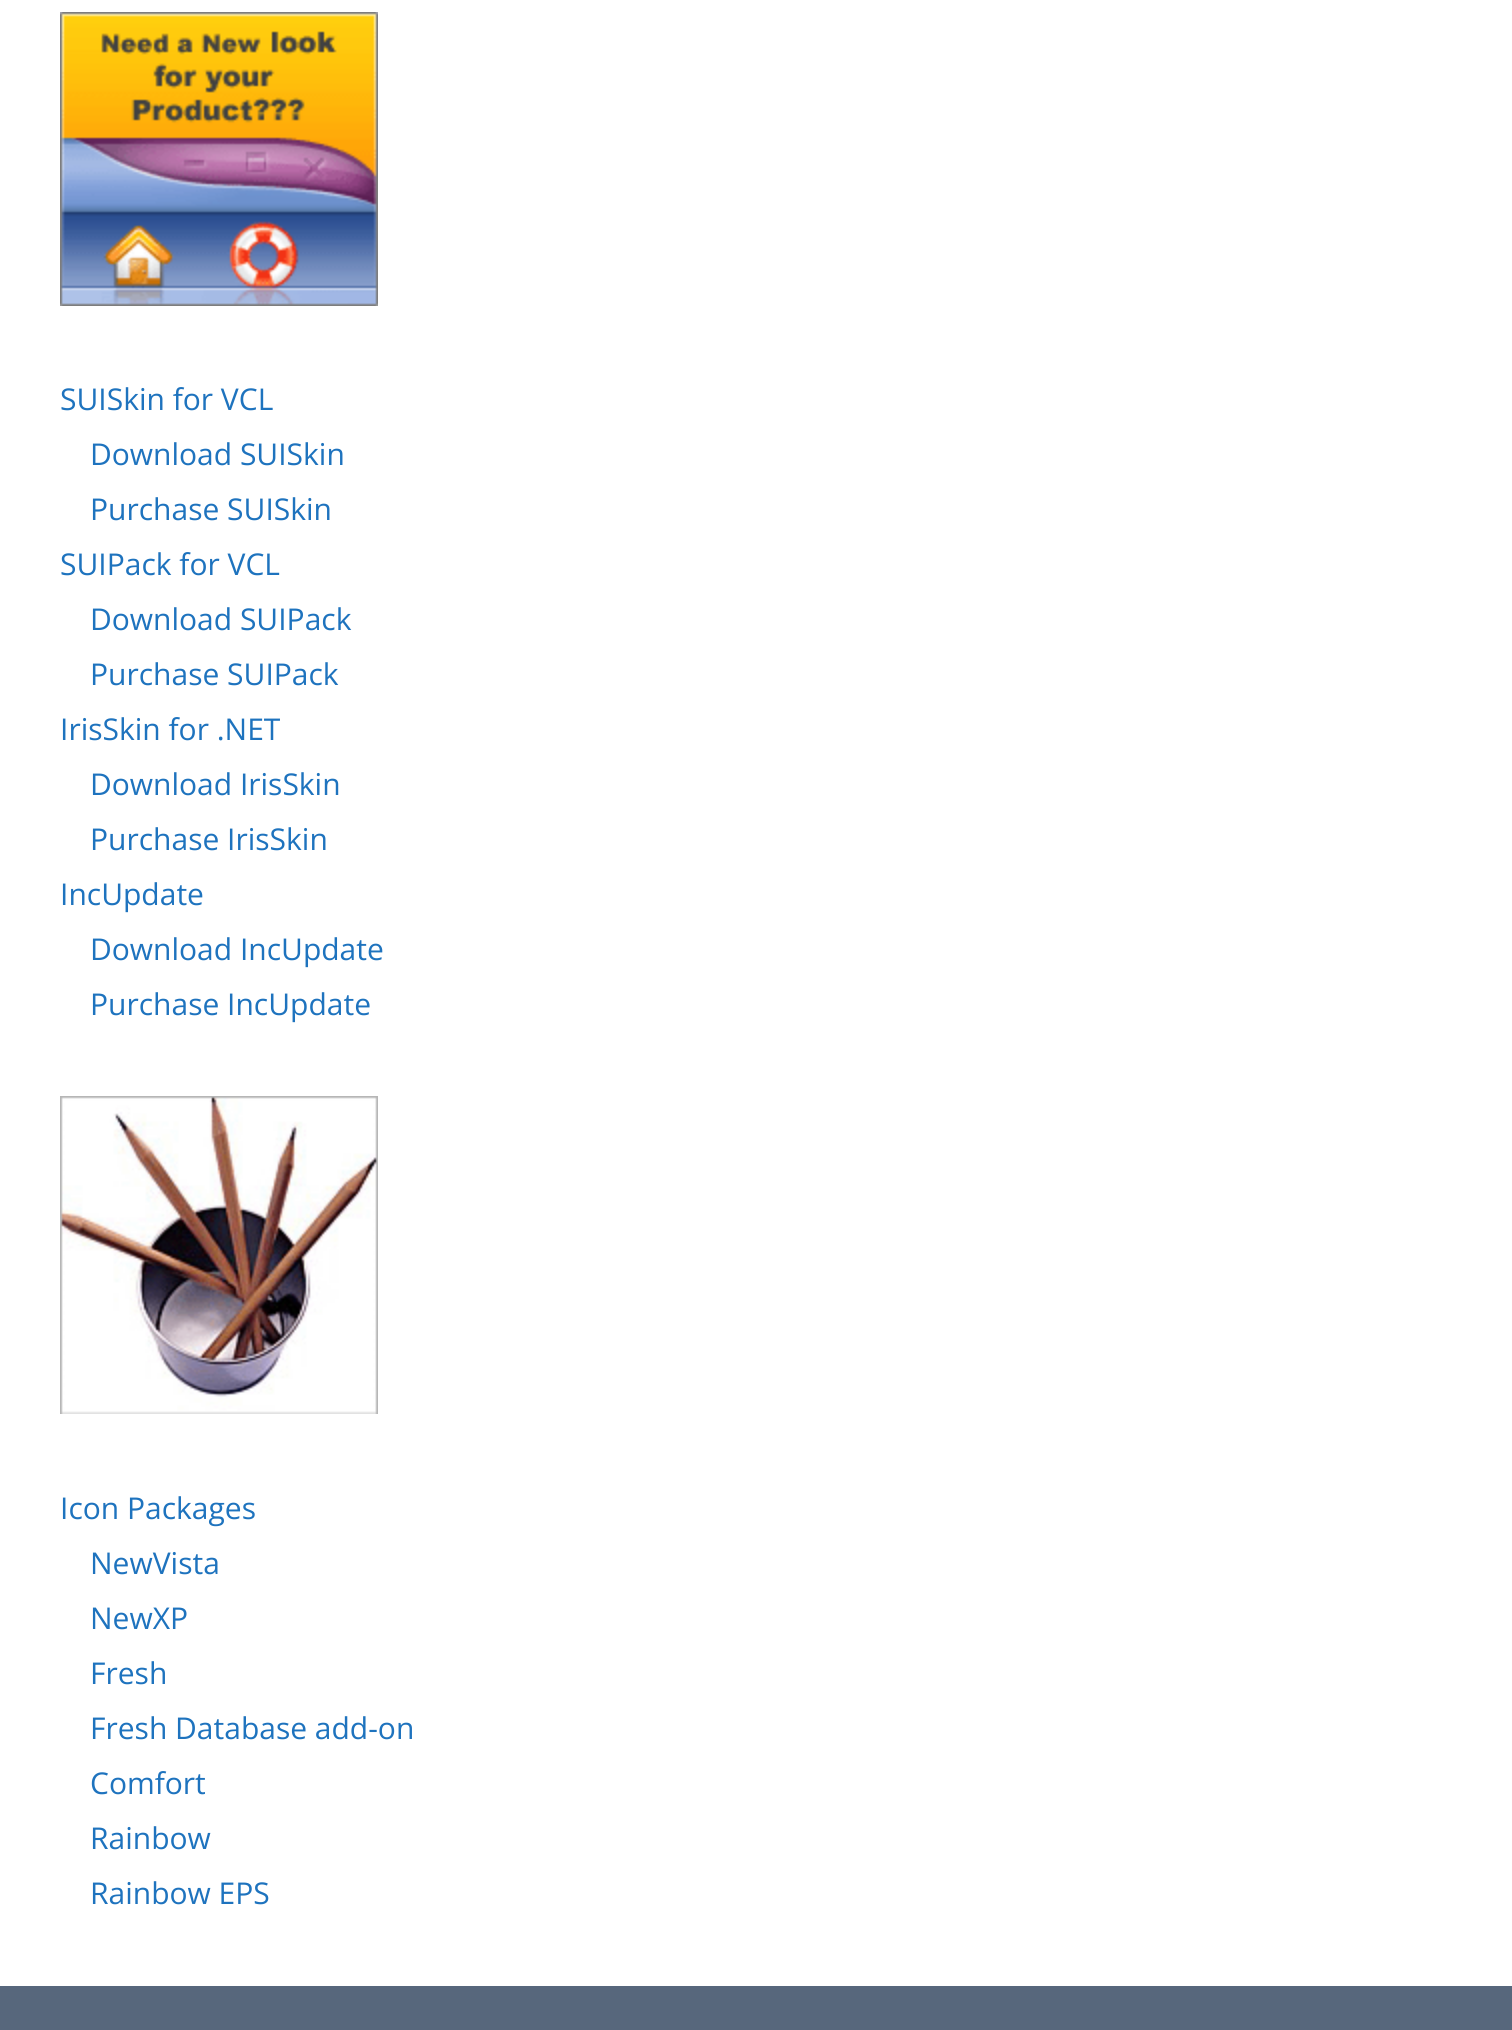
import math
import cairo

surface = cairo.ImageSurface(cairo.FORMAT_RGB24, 1512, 2030)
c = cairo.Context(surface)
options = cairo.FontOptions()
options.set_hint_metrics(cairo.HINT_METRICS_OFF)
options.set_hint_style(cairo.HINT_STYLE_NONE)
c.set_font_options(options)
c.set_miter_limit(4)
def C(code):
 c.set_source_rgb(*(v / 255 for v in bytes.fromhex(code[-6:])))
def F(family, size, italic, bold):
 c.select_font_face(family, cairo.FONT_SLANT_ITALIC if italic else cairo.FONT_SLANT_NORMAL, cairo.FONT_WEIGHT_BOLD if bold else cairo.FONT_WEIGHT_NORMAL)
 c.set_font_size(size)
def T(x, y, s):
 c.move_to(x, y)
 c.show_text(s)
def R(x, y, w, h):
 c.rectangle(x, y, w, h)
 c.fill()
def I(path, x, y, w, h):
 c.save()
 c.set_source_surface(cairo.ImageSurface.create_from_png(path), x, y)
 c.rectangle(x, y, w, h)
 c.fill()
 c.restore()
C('ffffff')
c.paint()
I('1.png',60,12,318,294)
F('Open Sans',30,0,0)
C('1e73be')
T(60,410,'SUISkin for VCL')
T(90,465,'Download SUISkin')
T(90,520,'Purchase SUISkin')
T(60,575,'SUIPack for VCL')
T(90,630,'Download SUIPack')
T(90,685,'Purchase SUIPack')
T(60,740,'IrisSkin for .NET')
T(90,795,'Download IrisSkin')
T(90,850,'Purchase IrisSkin')
T(60,905,'IncUpdate')
T(90,960,'Download IncUpdate')
T(90,1015,'Purchase IncUpdate')
I('2.png',60,1096,318,318)
T(60,1519,'Icon Packages')
T(90,1574,'NewVista')
T(90,1629,'NewXP')
T(90,1684,'Fresh')
T(90,1739,'Fresh Database add-on')
T(90,1794,'Comfort')
T(90,1849,'Rainbow')
T(90,1904,'Rainbow EPS')
C('57677c')
R(0,1986,1512,44)
surface.write_to_png('o.png')
